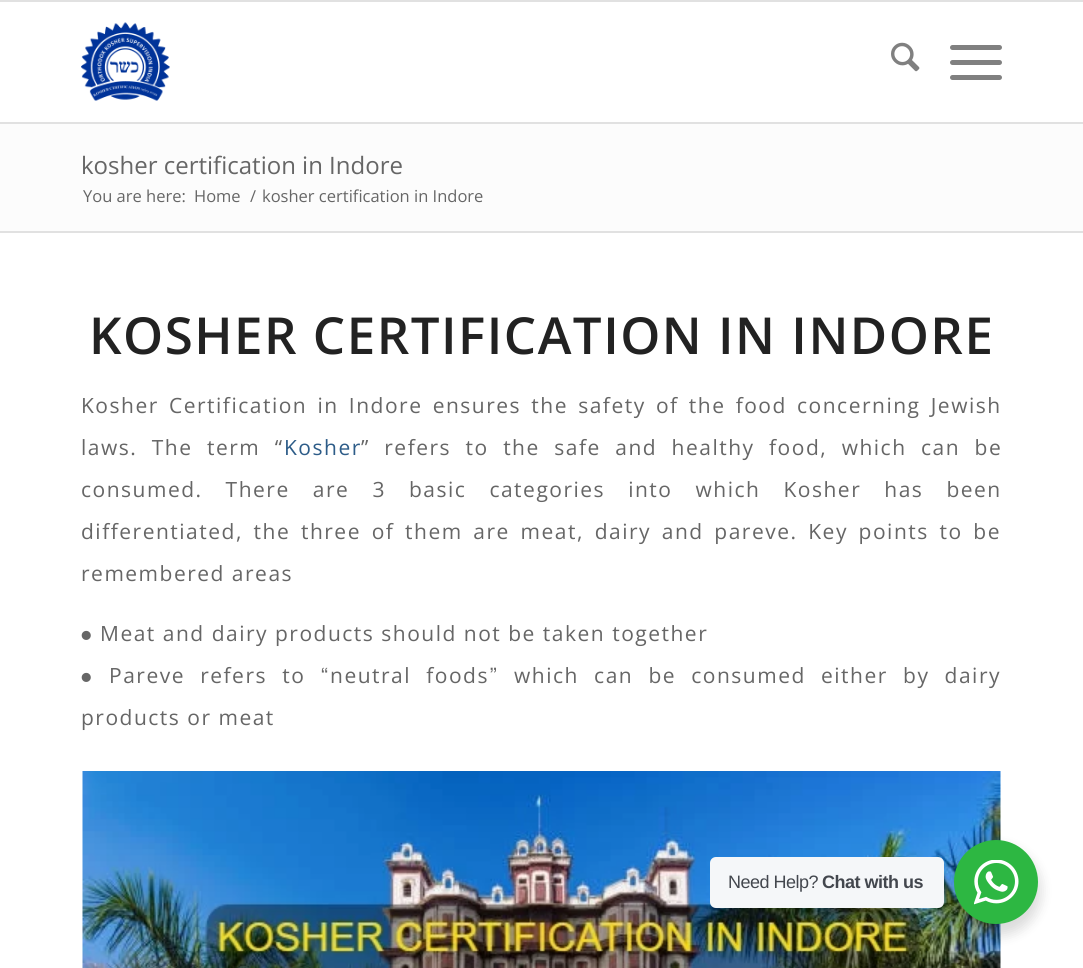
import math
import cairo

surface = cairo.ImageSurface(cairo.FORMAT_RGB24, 1083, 968)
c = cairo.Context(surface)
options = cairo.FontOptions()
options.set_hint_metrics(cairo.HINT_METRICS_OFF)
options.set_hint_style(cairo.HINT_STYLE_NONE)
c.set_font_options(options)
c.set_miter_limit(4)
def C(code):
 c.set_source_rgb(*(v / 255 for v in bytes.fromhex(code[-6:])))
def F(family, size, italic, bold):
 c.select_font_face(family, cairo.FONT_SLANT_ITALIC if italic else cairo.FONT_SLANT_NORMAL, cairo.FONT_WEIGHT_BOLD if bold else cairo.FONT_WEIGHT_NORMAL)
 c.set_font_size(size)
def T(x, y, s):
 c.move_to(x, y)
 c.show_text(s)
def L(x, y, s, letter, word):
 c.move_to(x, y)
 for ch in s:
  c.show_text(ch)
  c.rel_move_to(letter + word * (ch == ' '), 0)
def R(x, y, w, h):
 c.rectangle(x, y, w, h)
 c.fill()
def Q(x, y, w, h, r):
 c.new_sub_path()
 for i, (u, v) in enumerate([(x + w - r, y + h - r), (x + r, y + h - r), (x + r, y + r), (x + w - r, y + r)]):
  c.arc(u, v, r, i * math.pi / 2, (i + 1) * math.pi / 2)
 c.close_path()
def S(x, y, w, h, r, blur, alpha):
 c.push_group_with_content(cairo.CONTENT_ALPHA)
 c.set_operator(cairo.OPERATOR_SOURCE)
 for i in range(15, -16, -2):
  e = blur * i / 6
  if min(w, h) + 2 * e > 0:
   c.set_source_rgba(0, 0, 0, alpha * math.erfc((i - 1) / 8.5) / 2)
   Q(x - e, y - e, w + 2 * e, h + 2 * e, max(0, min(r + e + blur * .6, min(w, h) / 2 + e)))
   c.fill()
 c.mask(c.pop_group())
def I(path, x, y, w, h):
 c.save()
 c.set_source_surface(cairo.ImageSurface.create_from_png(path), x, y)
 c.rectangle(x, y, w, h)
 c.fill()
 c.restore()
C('ffffff')
c.paint()
C('e1e1e1')
R(0,0,1083,2)
R(0,122,1083,2)
I('1.png',81,22,89,79)
I('2.png',891,42,29,30)
C('808080')
Q(950,60,52,5,2.5)
c.fill()
Q(950,45,52,5,2.5)
c.fill()
Q(950,75,52,5,2.5)
c.fill()
C('fcfcfc')
R(0,124,1083,107)
F('Open Sans',24,0,0)
C('666666')
T(81,174,'kosher certification in Indore')
F('Open Sans',16.5,0,0)
T(83,202,'You are here:')
T(194,202,'Home')
T(250,202,'/')
T(262,202,'kosher certification in Indore')
C('e1e1e1')
R(0,231,1083,2)
F('Open Sans SemiBold',51,0,0)
C('222222')
L(89,354,'KOSHER CERTIFICATION IN INDORE',1.5,0)
F('Open Sans',21,0,0)
C('666666')
L(81,413,'Kosher Certification in Indore ensures the safety of the food concerning Jewish',1.5,3.25)
L(81,455,'laws. The term “',1.5,7.5)
C('2d5c88')
L(284,455,'Kosher',1.5,0)
C('666666')
L(361,455,'” refers to the safe and healthy food, which can be',1.5,7.5)
L(81,497,'consumed. There are 3 basic categories into which Kosher has been',1.5,16.1)
L(81,539,'differentiated, the three of them are meat, dairy and pareve. Key points to be',1.5,3.75)
L(81,581,'remembered areas',1.5,0)
F('FreeSans',21,0,0)
L(81,641,'⦁',1.5,0)
F('Open Sans',21,0,0)
L(100,641,'Meat and dairy products should not be taken together',1.5,0)
F('FreeSans',21,0,0)
L(81,683,'⦁',1.5,0)
F('Open Sans',21,0,0)
L(109,683,'Pareve refers to',1.5,8.25)
F('FreeSans',21,0,0)
L(320,683,'“',1.5,0)
F('Open Sans',21,0,0)
L(330,683,'neutral foods',1.5,8.25)
F('FreeSans',21,0,0)
L(489,683,'”',1.5,0)
F('Open Sans',21,0,0)
L(514,683,'which can be consumed either by dairy',1.5,8.25)
L(81,725,'products or meat',1.5,0)
I('3.png',82,771,919,197)
C('000000')
S(951,846,90,90,45,6,.14)
C('f5f7f9')
Q(710,857,234,51,6)
c.fill()
F('Liberation Sans',18,0,0)
C('43474e')
L(728,888,'Need Help?',-.5,0)
F('Liberation Sans',18,0,1)
L(822,888,'Chat with us',-.5,0)
C('2db742')
c.new_path()
c.arc(996,882,42,0,2 * math.pi)
c.fill()
I('4.png',974,860,45,45)
surface.write_to_png('o.png')
